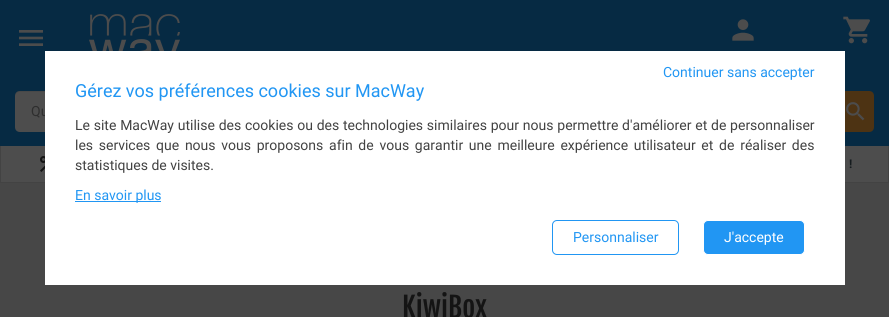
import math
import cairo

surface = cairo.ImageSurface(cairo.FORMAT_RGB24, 889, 317)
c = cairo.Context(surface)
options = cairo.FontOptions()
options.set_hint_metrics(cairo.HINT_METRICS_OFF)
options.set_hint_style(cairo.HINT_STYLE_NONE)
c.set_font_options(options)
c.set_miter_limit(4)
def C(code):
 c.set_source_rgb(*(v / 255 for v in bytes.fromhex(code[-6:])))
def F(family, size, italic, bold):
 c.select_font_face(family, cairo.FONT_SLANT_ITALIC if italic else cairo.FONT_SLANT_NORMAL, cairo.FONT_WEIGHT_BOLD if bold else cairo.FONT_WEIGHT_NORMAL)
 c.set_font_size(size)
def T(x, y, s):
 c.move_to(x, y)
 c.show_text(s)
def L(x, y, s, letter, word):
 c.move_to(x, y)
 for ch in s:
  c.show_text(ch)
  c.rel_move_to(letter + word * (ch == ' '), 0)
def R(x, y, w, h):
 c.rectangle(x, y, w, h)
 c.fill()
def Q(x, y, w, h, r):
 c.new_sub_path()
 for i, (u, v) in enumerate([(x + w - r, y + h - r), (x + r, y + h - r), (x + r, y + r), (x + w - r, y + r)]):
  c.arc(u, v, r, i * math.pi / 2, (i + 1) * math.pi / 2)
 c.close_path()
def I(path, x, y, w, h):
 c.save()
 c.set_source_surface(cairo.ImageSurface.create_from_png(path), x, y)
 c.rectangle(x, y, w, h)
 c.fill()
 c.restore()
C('474747')
c.paint()
C('062a43')
R(0,0,889,146)
C('4d4d4d')
c.new_path()
c.move_to(20,91)
c.line_to(836,91)
c.line_to(836,132)
c.line_to(20,132)
c.curve_to(17,132,15,130,15,127)
c.line_to(15,96)
c.curve_to(15,93,17,91,20,91)
c.close_path()
c.fill()
c.set_source_rgba(0,0,0,0.07)
c.new_path()
c.move_to(20,92)
c.line_to(836,92)
c.line_to(836,91)
c.line_to(20,91)
c.curve_to(17,91,15,93,15,96)
c.line_to(15,97)
c.curve_to(15,94,17,92,20,92)
c.close_path()
c.fill()
F('Roboto',14,0,0)
C('2e2e2e')
T(31,116,'Qu')
C('4d3313')
c.new_path()
c.move_to(836,91)
c.line_to(869,91)
c.curve_to(872,91,874,93,874,96)
c.line_to(874,127)
c.curve_to(874,130,872,132,869,132)
c.line_to(836,132)
c.close_path()
c.fill()
C('4d4d4d')
R(1,146,887,36)
C('434343')
R(0,182,889,1)
C('ffffff')
R(45,51,800,234)
F('Roboto',18,0,0)
C('2196f3')
T(75,97,'Gérez vos préférences cookies sur MacWay')
F('Roboto',14,0,0)
T(663,77,'Continuer sans accepter')
Q(552.5,220.5,126,34,4.5)
c.set_line_width(1)
c.stroke()
T(573,242,'Personnaliser')
Q(703.5,220.5,101,34,4.5)
c.fill_preserve()
C('ffffff')
c.stroke()
T(724,242,'J\'accepte')
C('424242')
L(75,130,'Le site MacWay utilise des cookies ou des technologies similaires pour nous permettre d\'améliorer et de personnaliser',0,.3)
L(75,150,'les services que nous vous proposons afin de vous garantir une meilleure expérience utilisateur et de réaliser des',0,2.25)
T(75,170,'statistiques de visites.')
C('2196f3')
R(75,201,86,1)
T(75,200,'En savoir plus')
I('1.png',19,30,24,16)
I('2.png',89,14,91,37)
I('3.png',732,19,22,22)
I('4.png',843,16,27,28)
I('5.png',846,102,19,19)
C('434343')
R(0,146,1,37)
I('6.png',40,156,5,16)
R(888,146,1,37)
F('Roboto',12,0,1)
C('151b1e')
T(849,168,'!')
F('Fjalla One',28,0,0)
C('141414')
T(402,318,'KiwiBox')
surface.write_to_png('o.png')
